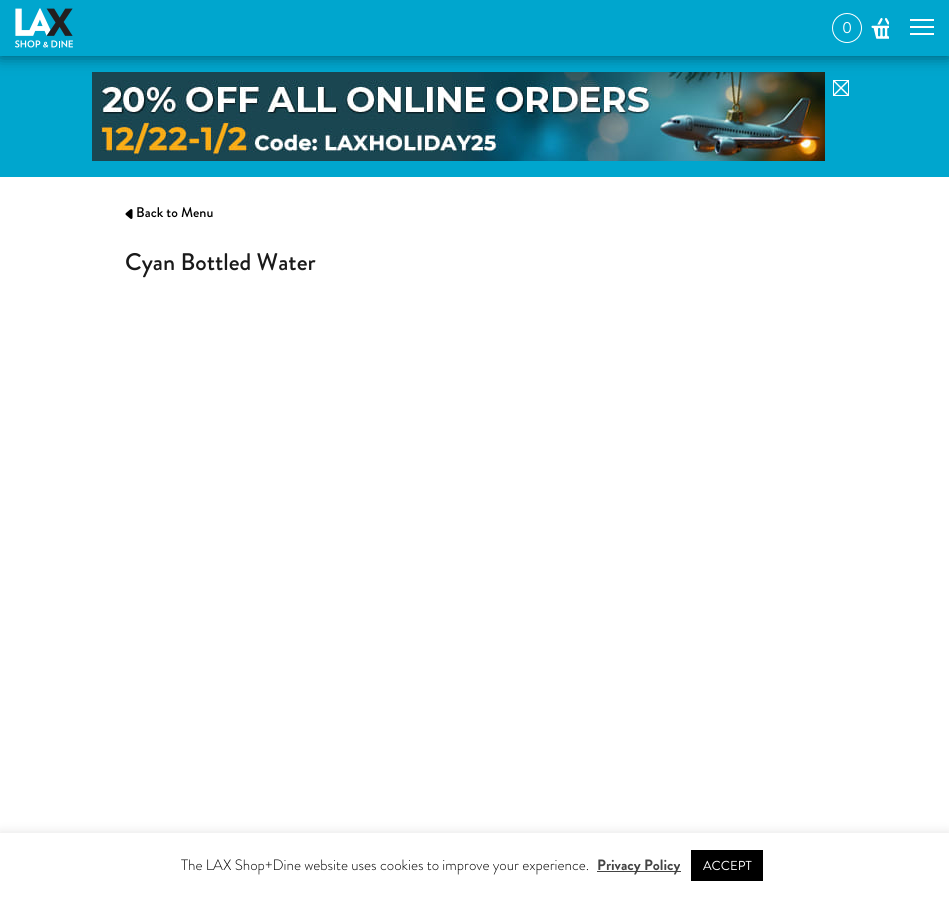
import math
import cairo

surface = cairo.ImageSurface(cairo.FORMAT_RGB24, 949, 898)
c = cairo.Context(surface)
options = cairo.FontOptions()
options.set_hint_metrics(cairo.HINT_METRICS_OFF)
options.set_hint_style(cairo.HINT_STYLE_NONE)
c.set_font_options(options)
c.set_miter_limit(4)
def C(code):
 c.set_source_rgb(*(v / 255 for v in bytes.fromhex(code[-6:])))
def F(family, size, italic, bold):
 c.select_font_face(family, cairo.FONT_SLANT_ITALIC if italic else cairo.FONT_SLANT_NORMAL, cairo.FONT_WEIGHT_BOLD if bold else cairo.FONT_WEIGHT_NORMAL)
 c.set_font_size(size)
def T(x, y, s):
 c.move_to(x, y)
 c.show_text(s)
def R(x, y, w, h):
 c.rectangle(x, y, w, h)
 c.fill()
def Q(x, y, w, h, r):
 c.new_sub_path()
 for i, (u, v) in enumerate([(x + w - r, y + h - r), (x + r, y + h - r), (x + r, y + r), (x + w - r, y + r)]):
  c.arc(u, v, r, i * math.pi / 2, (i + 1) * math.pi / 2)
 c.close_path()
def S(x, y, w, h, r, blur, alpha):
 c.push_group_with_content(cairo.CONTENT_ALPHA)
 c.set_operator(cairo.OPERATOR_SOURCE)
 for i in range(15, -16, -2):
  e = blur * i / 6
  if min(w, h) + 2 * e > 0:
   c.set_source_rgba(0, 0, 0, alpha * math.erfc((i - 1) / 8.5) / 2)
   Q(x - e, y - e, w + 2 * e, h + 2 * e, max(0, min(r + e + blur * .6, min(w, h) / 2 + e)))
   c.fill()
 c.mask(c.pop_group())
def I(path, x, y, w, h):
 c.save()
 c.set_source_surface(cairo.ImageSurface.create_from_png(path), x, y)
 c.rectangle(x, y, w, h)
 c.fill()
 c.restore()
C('ffffff')
c.paint()
C('00a6ce')
R(0,56,949,121)
I('3.png',92,72,733,89)
c.rectangle(833.5,80.5,15,15)
C('ffffff')
c.set_line_width(1)
c.stroke()
C('000000')
S(0,0,949,56,0,8,.5)
C('00a6ce')
R(0,0,949,56)
I('1.png',15,8,58,40)
c.arc(847,28,14.5,0,2 * math.pi)
C('ffffff')
c.stroke()
F('Brandon Grotesque',16,0,0)
T(842,33,'0')
I('2.png',871,18,18,21)
R(910,26,24,2)
R(910,19,24,2)
R(910,33,24,2)
c.save()
c.rectangle(834,81,14,14)
c.clip()
c.new_path()
c.move_to(834,80)
c.line_to(849,95)
c.line_to(848,96)
c.line_to(833,81)
c.close_path()
c.fill()
c.new_path()
c.move_to(833,95)
c.line_to(848,80)
c.line_to(849,81)
c.line_to(834,96)
c.close_path()
c.fill()
c.restore()
I('4.png',125,209,8,10)
F('Brandon Grotesque Medium',14,0,0)
C('000000')
T(136,217,'Back to Menu')
F('Brandon Grotesque Medium',24,0,0)
C('1a1a1a')
T(125,270,'Cyan Bottled Water')
C('acabab')
S(0,832,949,65,0,5,.3)
C('ffffff')
R(0,833,949,65)
F('Brandon Grotesque Light',15,0,0)
C('000000')
T(181,870,'The LAX Shop+Dine website uses cookies to improve your experience.')
C('444444')
R(597,871,84,1)
F('Brandon Grotesque',15,0,1)
T(597,870,'Privacy Policy')
C('000000')
R(691,850,72,31)
F('Brandon Grotesque',13,0,0)
C('ffffff')
T(703,870,'ACCEPT')
surface.write_to_png('o.png')
